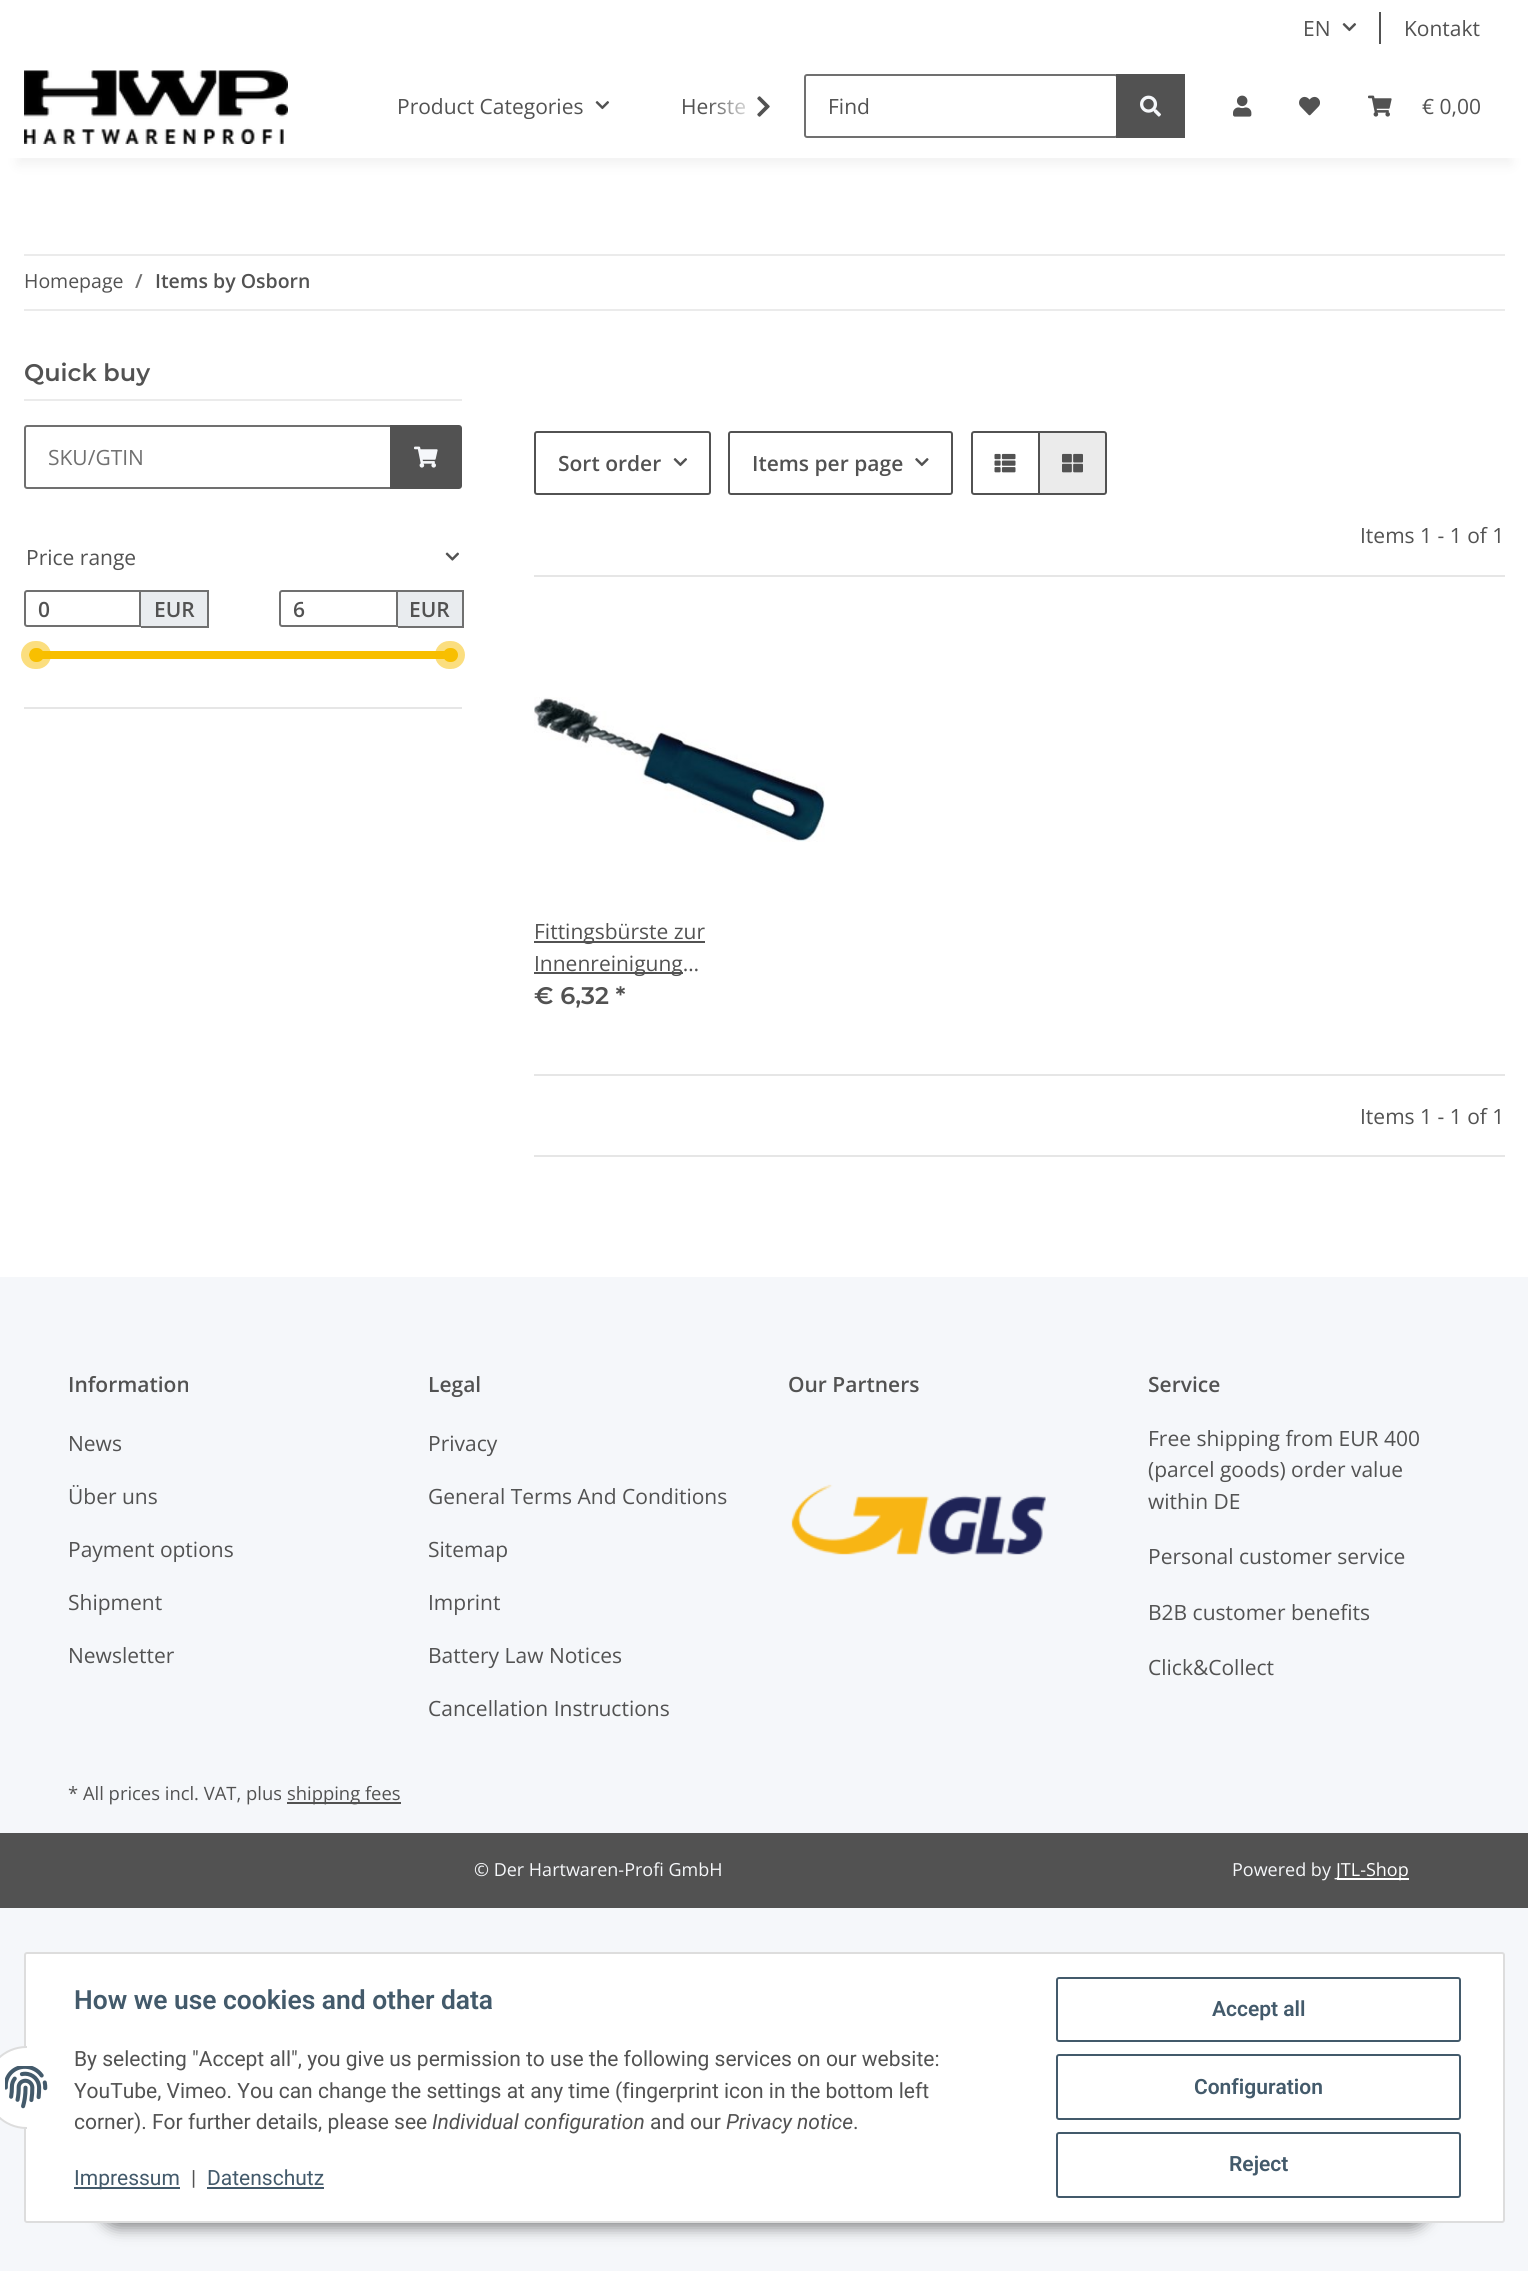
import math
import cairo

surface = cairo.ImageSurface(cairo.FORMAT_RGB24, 1528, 2271)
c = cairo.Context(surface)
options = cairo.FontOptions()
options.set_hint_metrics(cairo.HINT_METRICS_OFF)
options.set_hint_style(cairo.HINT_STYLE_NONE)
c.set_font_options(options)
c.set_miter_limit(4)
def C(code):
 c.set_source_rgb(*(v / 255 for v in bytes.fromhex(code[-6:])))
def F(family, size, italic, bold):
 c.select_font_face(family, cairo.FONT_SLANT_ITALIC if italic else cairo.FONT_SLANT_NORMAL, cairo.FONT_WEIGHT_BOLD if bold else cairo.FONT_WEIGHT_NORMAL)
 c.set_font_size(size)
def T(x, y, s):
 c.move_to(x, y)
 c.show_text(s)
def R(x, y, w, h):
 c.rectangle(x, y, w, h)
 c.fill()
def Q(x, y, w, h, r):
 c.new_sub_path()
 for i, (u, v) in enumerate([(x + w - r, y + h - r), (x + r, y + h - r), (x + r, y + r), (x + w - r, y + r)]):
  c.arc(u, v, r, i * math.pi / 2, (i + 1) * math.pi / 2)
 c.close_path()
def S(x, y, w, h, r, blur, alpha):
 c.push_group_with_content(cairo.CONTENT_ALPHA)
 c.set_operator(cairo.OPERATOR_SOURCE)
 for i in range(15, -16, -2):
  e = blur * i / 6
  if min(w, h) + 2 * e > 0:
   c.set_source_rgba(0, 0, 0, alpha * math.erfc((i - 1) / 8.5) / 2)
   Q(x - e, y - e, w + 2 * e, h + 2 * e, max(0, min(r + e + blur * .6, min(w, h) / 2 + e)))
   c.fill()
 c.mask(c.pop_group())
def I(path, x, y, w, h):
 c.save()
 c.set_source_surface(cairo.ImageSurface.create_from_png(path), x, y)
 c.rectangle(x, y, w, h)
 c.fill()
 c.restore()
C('f5f7fa')
c.paint()
C('ffffff')
R(0,158,1528,1119)
C('000000')
S(18,98,1493,66,0,7,.06)
C('ffffff')
R(0,0,1528,158)
F('Open Sans',21,0,0)
C('525252')
T(1303,36,'EN')
I('1.png',1342,23,15,9)
R(1379,12,2,32)
T(1404,36,'Kontakt')
I('2.png',24,70,264,74)
T(681,114,'Herste')
gradient = cairo.LinearGradient(708,107,780,107)
gradient.add_color_stop_rgba(0,1,1,1,.01)
gradient.add_color_stop_rgba(.7,1,1,1,1)
c.set_source(gradient)
R(710,100,35,15)
I('3.png',757,96,13,21)
C('525252')
T(397,114,'Product Categories')
I('1.png',595,101,15,9)
Q(805,75,312,62,2)
C('707070')
c.stroke()
C('525252')
T(828,114,'Find')
R(1116,74,69,64)
I('4.png',1140,95,21,22)
I('5.png',1233,95,19,22)
I('6.png',1299,96,21,20)
I('7.png',1368,95,24,22)
T(1422,114,'€ 0,00')
C('ebebeb')
R(24,254,1481,2)
R(24,309,1481,2)
F('Open Sans',19.5,0,0)
C('525252')
T(24,288,'Homepage')
F('Open Sans SemiBold',19.5,0,0)
C('707070')
T(135,288,'/')
C('525252')
T(155,288,'Items by Osborn')
C('ebebeb')
R(24,399,438,2)
F('Montserrat SemiBold',24,0,0)
C('525252')
T(24,381,'Quick buy')
c.new_path()
c.move_to(27,426)
c.line_to(391,426)
c.line_to(391,488)
c.line_to(27,488)
c.curve_to(26,488,25,487,25,486)
c.line_to(25,428)
c.curve_to(25,427,26,426,27,426)
c.close_path()
C('707070')
c.stroke()
F('Open Sans',21,0,0)
T(48,465,'SKU/GTIN')
C('525252')
c.new_path()
c.move_to(391,426)
c.line_to(459,426)
c.curve_to(460,426,461,427,461,428)
c.line_to(461,486)
c.curve_to(461,487,460,488,459,488)
c.line_to(391,488)
c.close_path()
c.fill_preserve()
c.stroke()
I('8.png',414,446,24,22)
T(26,565,'Price range')
I('9.png',445,552,14,9)
c.new_path()
c.move_to(27,591)
c.line_to(140,591)
c.line_to(140,626)
c.line_to(27,626)
c.curve_to(26,626,25,625,25,624)
c.line_to(25,593)
c.curve_to(25,592,26,591,27,591)
c.close_path()
C('707070')
c.stroke()
F('Open Sans SemiBold',21,0,0)
C('525252')
T(38,617,'0')
C('e9ecef')
R(141,592,66,34)
C('707070')
R(141,590,68,2)
R(207,590,2,37)
R(141,626,68,2)
C('525252')
T(154,617,'EUR')
c.new_path()
c.move_to(282,591)
c.line_to(397,591)
c.line_to(397,626)
c.line_to(282,626)
c.curve_to(281,626,280,625,280,624)
c.line_to(280,593)
c.curve_to(280,592,281,591,282,591)
c.close_path()
C('707070')
c.stroke()
C('525252')
T(293,617,'6')
C('e9ecef')
R(398,592,64,34)
C('707070')
R(398,590,66,2)
R(462,590,2,37)
R(398,626,66,2)
C('525252')
T(409,617,'EUR')
C('f8bf00')
R(36,651,414,8)
Q(25,645,22,20,10)
c.set_source_rgba(0.973,0.749,0,0.5)
c.set_line_width(8)
c.stroke()
C('f8bf00')
Q(29,648,15,14,7)
c.fill()
Q(439,645,22,20,10)
c.set_source_rgba(0.973,0.749,0,0.5)
c.stroke()
C('f8bf00')
Q(443,648,15,14,7)
c.fill()
C('e6e6e6')
R(24,707,438,2)
Q(535,432,175,62,2)
C('525252')
c.set_line_width(2)
c.stroke()
T(558,471,'Sort order')
I('1.png',673,458,15,9)
Q(729,432,223,62,2)
c.stroke()
T(752,471,'Items per page')
I('10.png',915,458,14,9)
c.new_path()
c.move_to(974,432)
c.line_to(1039,432)
c.line_to(1039,494)
c.line_to(974,494)
c.curve_to(973,494,972,493,972,492)
c.line_to(972,434)
c.curve_to(972,433,973,432,974,432)
c.close_path()
c.stroke()
I('11.png',994,453,22,20)
C('ebebeb')
c.new_path()
c.move_to(1039,432)
c.line_to(1104,432)
c.curve_to(1105,432,1106,433,1106,434)
c.line_to(1106,492)
c.curve_to(1106,493,1105,494,1104,494)
c.line_to(1039,494)
c.close_path()
c.fill_preserve()
C('525252')
c.stroke()
I('12.png',1062,453,21,20)
F('Open Sans',21,0,0)
T(1360,543,'Items 1 - 1 of 1')
C('e6e6e6')
R(534,575,971,2)
I('13.png',534,697,291,145)
C('525252')
R(534,941,171,2)
T(534,939,'Fittingsbürste zur')
R(534,972,149,2)
T(534,971,'Innenreinigung…')
F('Montserrat SemiBold',24,0,0)
T(534,1004,'€ 6,32 *')
C('e6e6e6')
R(534,1074,971,2)
F('Open Sans',21,0,0)
C('525252')
T(1360,1124,'Items 1 - 1 of 1')
C('e6e6e6')
R(534,1155,971,2)
F('Open Sans SemiBold',21,0,0)
C('525252')
T(68,1392,'Information')
F('Open Sans',21,0,0)
T(68,1451,'News')
T(68,1504,'Über uns')
T(68,1557,'Payment options')
T(68,1610,'Shipment')
T(68,1663,'Newsletter')
F('Open Sans SemiBold',21,0,0)
T(428,1392,'Legal')
F('Open Sans',21,0,0)
T(428,1451,'Privacy')
T(428,1504,'General Terms And Conditions')
T(428,1557,'Sitemap')
T(428,1610,'Imprint')
T(428,1663,'Battery Law Notices')
T(428,1716,'Cancellation Instructions')
F('Open Sans SemiBold',21,0,0)
T(788,1392,'Our Partners')
I('14.png',791,1484,255,71)
T(1148,1392,'Service')
F('Open Sans',21,0,0)
T(1148,1446,'Free shipping from EUR 400')
T(1148,1477,'(parcel goods) order value')
T(1148,1509,'within DE')
T(1148,1564,'Personal customer service')
T(1148,1620,'B2B customer benefits')
T(1148,1675,'Click&Collect')
F('Open Sans',18.4,0,0)
T(68,1800,'* All prices incl. VAT, plus')
R(287,1802,114,2)
T(287,1800,'shipping fees')
R(0,1833,1528,75)
F('Open Sans',18,0,0)
C('f5f7fa')
T(474,1876,'© Der Hartwaren-Profi GmbH')
T(1232,1876,'Powered by')
C('ffffff')
R(1337,1878,72,2)
T(1336,1876,'JTL-Shop')
C('000000')
S(99,2180,1331,48,24,7.5,.45)
C('ffffff')
Q(25,1953,1479,269,2)
c.fill_preserve()
C('dddddd')
c.stroke()
C('ffffff')
c.arc(26.5,2087.5,40.5,0,2 * math.pi)
c.fill_preserve()
C('dddddd')
c.stroke()
C('ffffff')
R(27,2046,41,83)
I('15.png',5,2066,43,43)
F('Roboto SemiBold',26.4,0,0)
C('435a6b')
T(74,2009,'How we use cookies and other data')
F('Roboto',21,0,0)
C('525252')
T(74,2066,'By selecting "Accept all", you give us permission to use the following services on our website:')
T(74,2098,'YouTube, Vimeo. You can change the settings at any time (fingerprint icon in the bottom left')
T(74,2129,'corner). For further details, please see')
F('Roboto',21,1,0)
T(432,2129,'Individual configuration')
F('Roboto',21,0,0)
T(650,2129,'and our')
F('Roboto',21,1,0)
T(726,2129,'Privacy notice')
F('Roboto',21,0,0)
T(853,2129,'.')
C('435a6b')
R(74,2187,106,2)
T(74,2185,'Impressum')
C('525252')
T(191,2185,'|')
C('435a6b')
T(207,2185,'Datenschutz')
R(207,2187,117,2)
Q(1057,1978,403,63,2)
c.stroke()
F('Roboto SemiBold',21,0,0)
T(1212,2016,'Accept all')
Q(1057,2055,403,64,2)
c.stroke()
T(1194,2094,'Configuration')
Q(1057,2133,403,64,2)
c.stroke()
T(1229,2171,'Reject')
surface.write_to_png('o.png')
